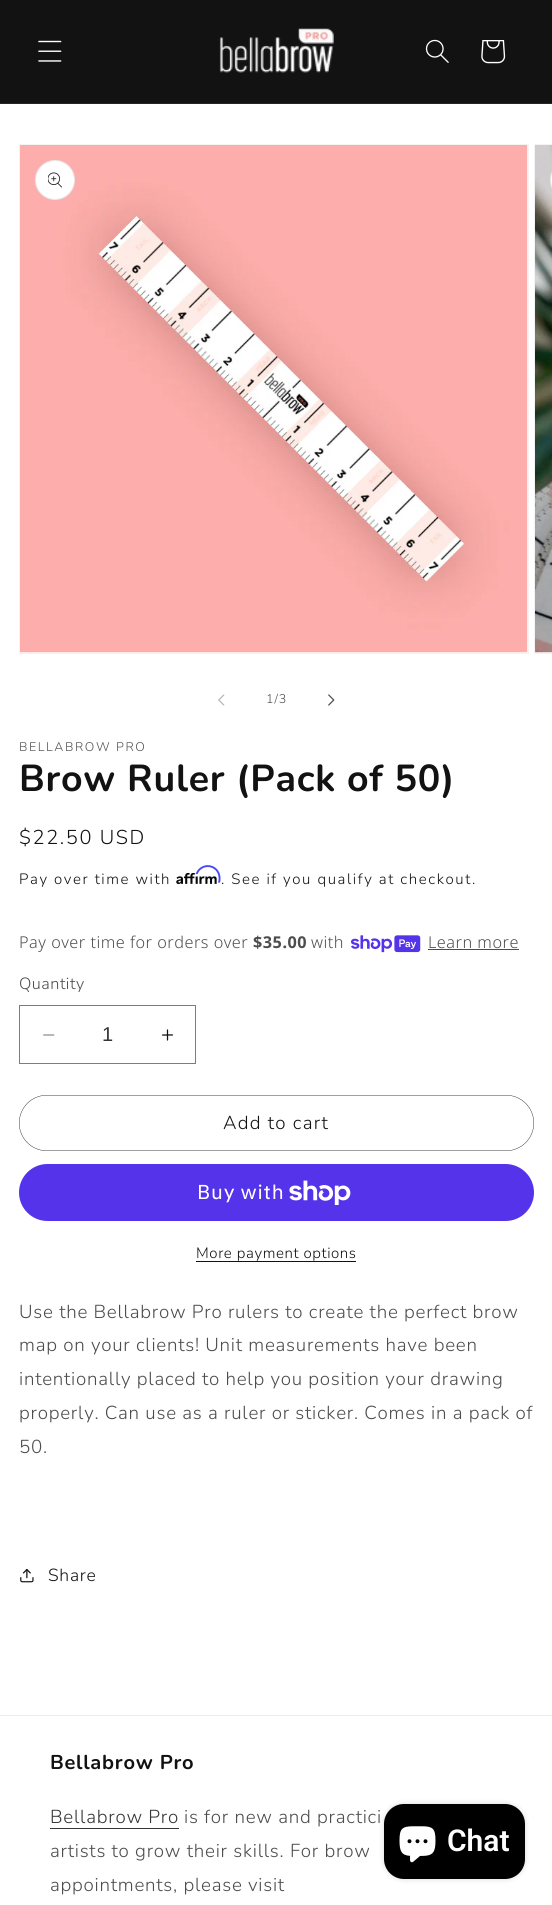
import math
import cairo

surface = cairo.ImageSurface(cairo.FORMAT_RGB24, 552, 1905)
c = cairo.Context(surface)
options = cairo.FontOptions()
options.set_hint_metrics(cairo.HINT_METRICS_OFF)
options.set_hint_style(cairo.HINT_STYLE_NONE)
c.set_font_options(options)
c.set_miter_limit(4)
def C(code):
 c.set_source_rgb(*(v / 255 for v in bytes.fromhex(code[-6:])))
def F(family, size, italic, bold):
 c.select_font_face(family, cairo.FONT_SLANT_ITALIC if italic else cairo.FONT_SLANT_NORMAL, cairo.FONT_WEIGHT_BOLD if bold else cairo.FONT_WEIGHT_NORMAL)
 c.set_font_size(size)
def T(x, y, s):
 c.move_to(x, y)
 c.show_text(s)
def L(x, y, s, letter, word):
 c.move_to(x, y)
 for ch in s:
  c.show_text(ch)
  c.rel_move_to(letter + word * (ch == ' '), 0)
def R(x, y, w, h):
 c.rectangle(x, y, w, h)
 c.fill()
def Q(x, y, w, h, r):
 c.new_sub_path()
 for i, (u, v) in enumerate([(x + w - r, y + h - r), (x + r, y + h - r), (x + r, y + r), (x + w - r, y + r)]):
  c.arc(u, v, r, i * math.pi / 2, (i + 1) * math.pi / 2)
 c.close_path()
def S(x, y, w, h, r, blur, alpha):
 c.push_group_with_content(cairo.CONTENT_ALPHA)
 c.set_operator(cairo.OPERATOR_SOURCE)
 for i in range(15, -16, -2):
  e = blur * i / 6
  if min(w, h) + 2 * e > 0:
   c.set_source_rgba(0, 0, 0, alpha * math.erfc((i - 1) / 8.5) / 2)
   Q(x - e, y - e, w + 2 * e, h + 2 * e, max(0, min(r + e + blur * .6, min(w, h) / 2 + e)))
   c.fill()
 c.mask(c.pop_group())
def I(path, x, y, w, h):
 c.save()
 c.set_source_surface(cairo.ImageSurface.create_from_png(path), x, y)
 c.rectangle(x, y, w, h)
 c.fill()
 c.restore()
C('ffffff')
c.paint()
C('121212')
R(0,0,552,103)
C('252525')
R(0,103,552,1)
I('1.png',38,40,24,22)
I('2.png',219,28,115,45)
I('3.png',425,39,24,24)
I('4.png',481,40,25,24)
c.rectangle(19.5,144.5,509,509)
C('f3f3f3')
c.set_line_width(1)
c.stroke()
I('5.png',20,145,508,508)
C('ffffff')
c.arc(55,180,20,0,2 * math.pi)
c.fill()
c.arc(55,180,19.5,0,2 * math.pi)
c.set_source_rgba(0.071,0.071,0.071,0.1)
c.stroke()
I('6.png',48,172,14,16)
c.rectangle(534.5,144.5,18,509)
C('f3f3f3')
c.stroke()
I('7.png',535,145,17,508)
C('ffffff')
c.new_path()
c.move_to(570,160)
c.line_to(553,160)
c.line_to(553,200)
c.line_to(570,200)
c.curve_to(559,200,550,191,550,180)
c.curve_to(550,169,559,160,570,160)
c.close_path()
c.fill()
Q(550.5,160.5,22,39,19.5)
c.set_source_rgba(0.071,0.071,0.071,0.1)
c.stroke()
I('8.png',218,694,7,12)
F('Nunito Light',12.5,0,0)
C('4d4d4d')
L(266,703,'1/3',1,0)
I('9.png',328,694,7,12)
L(19,751,'BELLABROW PRO',1.6,0)
F('Nunito',37.5,0,1)
C('121212')
L(19,791,'Brow Ruler (Pack of 50)',.75,0)
F('Nunito Light',20,0,0)
L(19,844,'$22.50 USD',1.6,0)
F('Nunito Light',15,0,0)
L(19,884,'Pay over time with',1.6,0)
I('11.png',176,872,41,13)
I('10.png',195,865,26,18)
L(221,884,'. See if you qualify at checkout.',1.6,0)
F('Noto Sans Light',16.25,0,0)
C('4d4d4d')
L(19,948,'Pay over time for orders over',.5,0)
F('Noto Sans',16.25,0,1)
L(253,948,'$35.00',.5,0)
F('Noto Sans Light',16.25,0,0)
L(311,948,'with',.5,0)
I('12.png',351,935,70,18)
L(428,948,'Learn more',.5,0)
R(428,949,91,1)
F('Nunito Light',16.25,0,0)
L(19,989,'Quantity',.5,0)
I('13.png',43,1034,12,2)
I('14.png',162,1029,12,12)
c.rectangle(19.5,1005.5,176,58)
C('7d7d7d')
c.stroke()
F('Liberation Sans',20,0,0)
C('363636')
T(102,1041,'1')
Q(19.2,1095.2,514.6,55.6,27.8)
C('121212')
c.set_line_width(.4)
c.stroke()
F('Nunito Light',18.75,0,0)
L(223,1129,'Add to cart',1.25,0)
C('5433eb')
Q(19,1164,515,57,28.5)
c.fill()
F('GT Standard',20,0,0)
C('ffffff')
L(197,1199,'Buy with',.75,0)
I('15.png',289,1180,62,25)
F('Nunito Light',15,0,0)
C('121212')
L(196,1258,'More payment options',.6,0)
R(196,1261,160,1)
F('Nunito Light',18.75,0,0)
C('4d4d4d')
L(19,1318,'Use the Bellabrow Pro rulers to create the perfect brow',.75,0)
L(19,1351,'map on your clients! Unit measurements have been',.75,0)
L(19,1385,'intentionally placed to help you position your drawing',.75,0)
L(19,1419,'properly. Can use as a ruler or sticker. Comes in a pack of',.75,0)
L(19,1453,'50.',.75,0)
I('16.png',20,1568,14,15)
F('Nunito Light',17.5,0,0)
C('121212')
L(48,1581,'Share',.75,0)
C('ececec')
R(0,1715,552,1)
F('Nunito',20,0,1)
C('121212')
L(50,1769,'Bellabrow Pro',.75,0)
F('Nunito Light',18.75,0,0)
C('363636')
L(50,1823,'Bellabrow Pro',.75,0)
R(50,1828,129,1)
C('4d4d4d')
L(184,1823,'is for new and practici',.75,0)
L(50,1857,'artists to grow their skills. For brow',.75,0)
L(50,1891,'appointments, please visit',.75,0)
C('000000')
S(384,1804,141,75,20,3,.15)
C('000000')
Q(384,1804,141,75,20)
c.fill()
I('17.png',399,1826,37,37)
F('Roboto SemiBold',30,0,0)
C('ffffff')
T(447,1851,'Chat')
surface.write_to_png('o.png')
